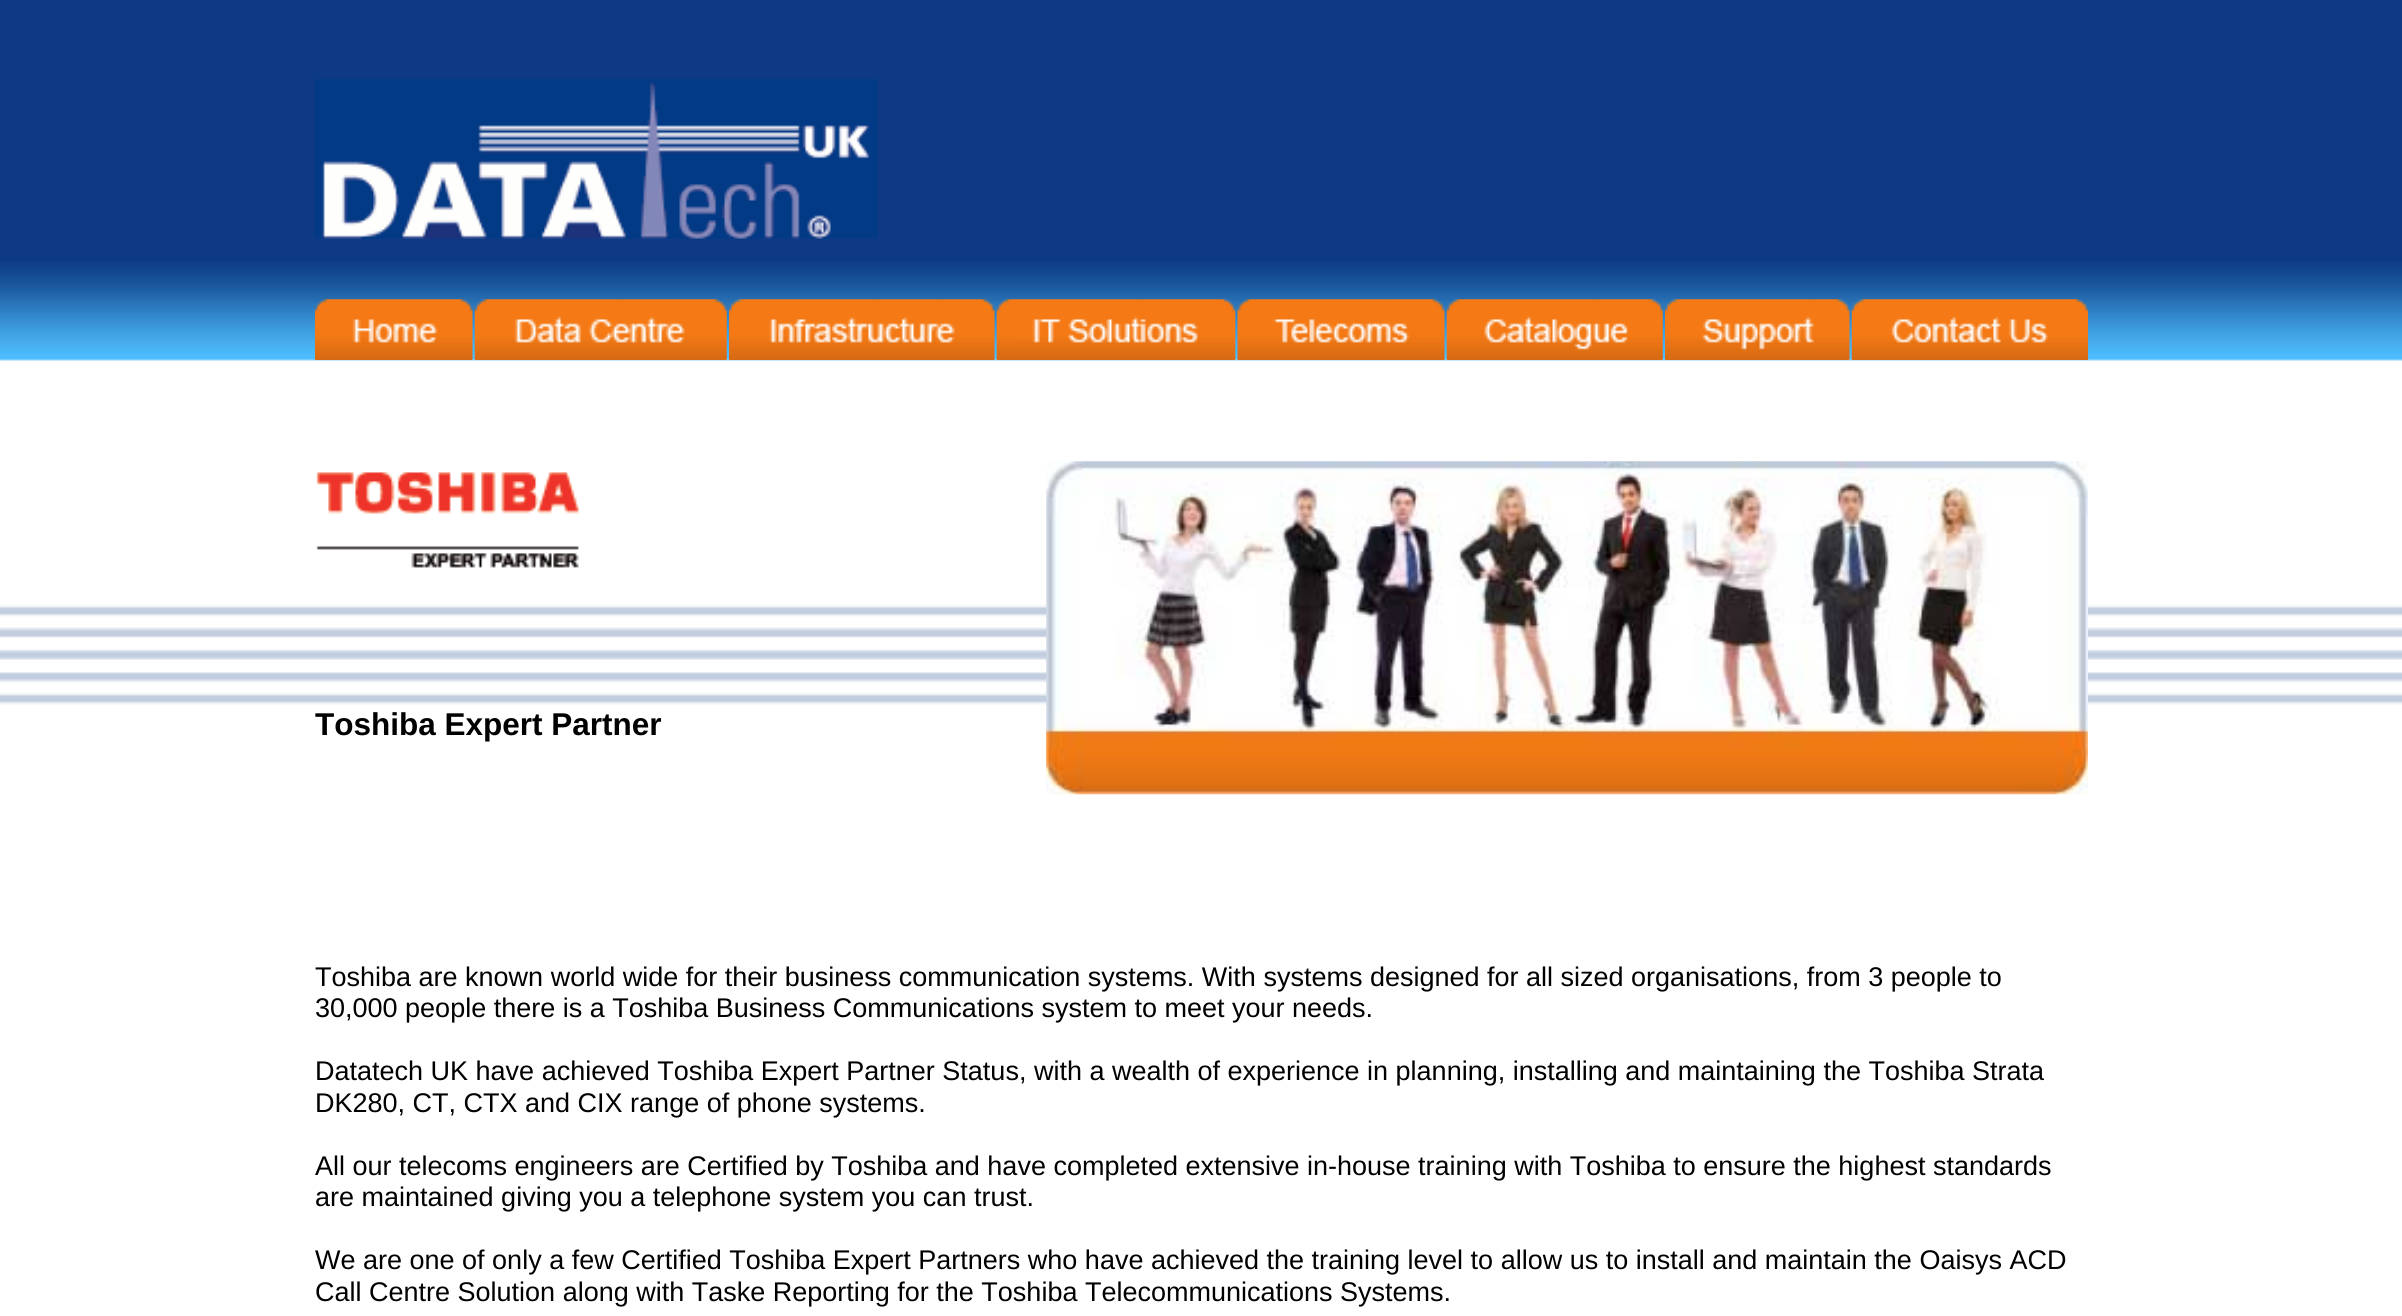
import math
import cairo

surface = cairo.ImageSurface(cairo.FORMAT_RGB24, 2402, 1316)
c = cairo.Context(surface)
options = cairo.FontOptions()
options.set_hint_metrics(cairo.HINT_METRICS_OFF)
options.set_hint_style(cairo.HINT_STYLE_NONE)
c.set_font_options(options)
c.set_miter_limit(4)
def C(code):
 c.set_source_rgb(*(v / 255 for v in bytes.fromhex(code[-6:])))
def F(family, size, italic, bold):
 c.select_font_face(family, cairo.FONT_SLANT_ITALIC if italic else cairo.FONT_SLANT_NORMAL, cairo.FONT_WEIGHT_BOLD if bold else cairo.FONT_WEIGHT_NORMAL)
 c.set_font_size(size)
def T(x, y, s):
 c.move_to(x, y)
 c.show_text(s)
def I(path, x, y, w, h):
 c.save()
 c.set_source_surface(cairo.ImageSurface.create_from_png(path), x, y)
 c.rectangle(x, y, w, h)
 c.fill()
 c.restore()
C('ffffff')
c.paint()
I('1.png',0,0,2402,705)
I('2.png',315,79,563,160)
I('3.png',315,299,158,61)
I('4.png',474,299,253,61)
I('5.png',729,299,266,61)
I('6.png',996,299,240,61)
I('7.png',1237,299,208,61)
I('8.png',1446,299,217,61)
I('9.png',1665,299,185,61)
I('10.png',1851,299,237,61)
I('11.png',316,472,263,96)
F('Liberation Sans',31.5,0,1)
C('000000')
T(315,735,'Toshiba Expert Partner')
I('12.png',1046,461,1042,334)
F('Liberation Sans',27,0,0)
T(315,986,'Toshiba are known world wide for their business communication systems. With systems designed for all sized organisations, from 3 people to')
T(315,1017,'30,000 people there is a Toshiba Business Communications system to meet your needs.')
T(315,1080,'Datatech UK have achieved Toshiba Expert Partner Status, with a wealth of experience in planning, installing and maintaining the Toshiba Strata')
T(315,1112,'DK280, CT, CTX and CIX range of phone systems.')
T(315,1175,'All our telecoms engineers are Certified by Toshiba and have completed extensive in-house training with Toshiba to ensure the highest standards')
T(315,1206,'are maintained giving you a telephone system you can trust.')
T(315,1269,'We are one of only a few Certified Toshiba Expert Partners who have achieved the training level to allow us to install and maintain the Oaisys ACD')
T(315,1301,'Call Centre Solution along with Taske Reporting for the Toshiba Telecommunications Systems.')
surface.write_to_png('o.png')
